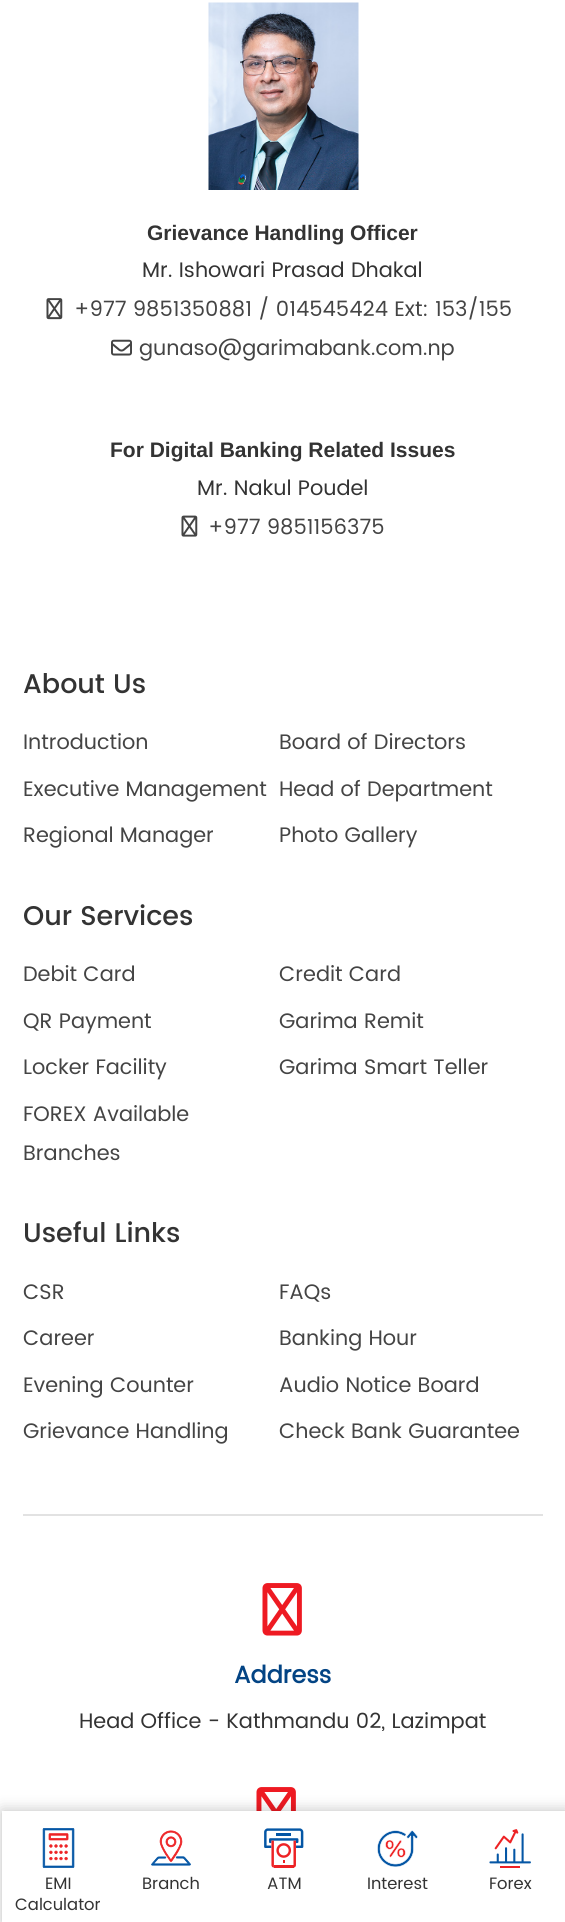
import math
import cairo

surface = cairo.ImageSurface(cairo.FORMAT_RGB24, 565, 1922)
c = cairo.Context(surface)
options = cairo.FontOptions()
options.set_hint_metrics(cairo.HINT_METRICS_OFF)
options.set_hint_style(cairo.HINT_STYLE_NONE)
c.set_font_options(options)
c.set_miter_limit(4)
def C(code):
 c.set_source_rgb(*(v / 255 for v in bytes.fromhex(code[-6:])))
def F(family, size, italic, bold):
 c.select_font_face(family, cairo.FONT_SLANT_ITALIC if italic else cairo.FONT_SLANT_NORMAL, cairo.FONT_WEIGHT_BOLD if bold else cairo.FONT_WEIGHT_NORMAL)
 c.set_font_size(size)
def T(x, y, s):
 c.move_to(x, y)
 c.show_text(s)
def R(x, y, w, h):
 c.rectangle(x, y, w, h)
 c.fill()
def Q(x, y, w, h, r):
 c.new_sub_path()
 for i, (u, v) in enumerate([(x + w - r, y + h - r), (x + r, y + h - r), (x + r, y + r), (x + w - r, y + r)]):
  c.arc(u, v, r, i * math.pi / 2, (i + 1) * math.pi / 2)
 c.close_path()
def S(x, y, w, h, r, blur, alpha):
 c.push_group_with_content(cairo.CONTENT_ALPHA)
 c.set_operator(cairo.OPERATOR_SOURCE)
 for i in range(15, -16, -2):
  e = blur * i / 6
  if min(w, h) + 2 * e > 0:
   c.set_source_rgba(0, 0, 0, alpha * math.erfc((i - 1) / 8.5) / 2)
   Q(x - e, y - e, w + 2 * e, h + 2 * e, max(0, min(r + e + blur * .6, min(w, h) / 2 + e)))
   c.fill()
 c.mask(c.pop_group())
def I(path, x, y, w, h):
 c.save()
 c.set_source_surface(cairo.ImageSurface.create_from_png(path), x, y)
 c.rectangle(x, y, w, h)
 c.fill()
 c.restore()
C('ffffff')
c.paint()
I('1.png',208,2,151,188)
F('Liberation Sans',21,0,1)
C('333333')
T(147,240,'Grievance Handling Officer')
F('Poppins',21,0,0)
T(142,277,'Mr. Ishowari Prasad Dhakal')
I('2.png',46,298,17,22)
C('444444')
T(74,316,'+977 9851350881 / 014545424 Ext: 153/155')
I('3.png',111,339,21,17)
T(139,355,'gunaso@garimabank.com.np')
F('Liberation Sans',21,0,1)
C('333333')
T(110,457,'For Digital Banking Related Issues')
F('Poppins',21,0,0)
T(197,495,'Mr. Nakul Poudel')
I('4.png',181,515,17,22)
C('444444')
T(208,534,'+977 9851156375')
F('Poppins Medium',27,0,0)
C('333333')
T(23,693,'About Us')
F('Poppins',21,0,0)
C('444444')
T(23,749,'Introduction')
T(279,749,'Board of Directors')
T(23,796,'Executive Management')
T(279,796,'Head of Department')
T(23,842,'Regional Manager')
T(279,842,'Photo Gallery')
F('Poppins Medium',27,0,0)
C('333333')
T(23,925,'Our Services')
F('Poppins',21,0,0)
C('444444')
T(23,981,'Debit Card')
T(279,981,'Credit Card')
T(23,1028,'QR Payment')
T(279,1028,'Garima Remit')
T(23,1074,'Locker Facility')
T(279,1074,'Garima Smart Teller')
T(23,1121,'FOREX Available')
T(23,1160,'Branches')
F('Poppins Medium',27,0,0)
C('333333')
T(23,1242,'Useful Links')
F('Poppins',21,0,0)
C('444444')
T(23,1299,'CSR')
T(279,1299,'FAQs')
T(23,1345,'Career')
T(279,1345,'Banking Hour')
T(23,1392,'Evening Counter')
T(279,1392,'Audio Notice Board')
T(23,1438,'Grievance Handling')
T(279,1438,'Check Bank Guarantee')
C('e2e2e2')
R(23,1514,520,2)
I('5.png',262,1583,40,53)
F('Poppins',24,0,1)
C('034484')
T(234,1683,'Address')
F('Poppins',21,0,0)
C('333333')
T(79,1728,'Head Office - Kathmandu 02, Lazimpat')
I('6.png',256,1787,40,24)
C('000000')
S(2,1811,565,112,0,7.5,.25)
C('ffffff')
R(2,1811,563,111)
I('7.png',42,1828,33,40)
F('Poppins',16.5,0,0)
C('333333')
T(45,1889,'EMI')
T(15,1910,'Calculator')
I('8.png',151,1830,40,36)
T(142,1889,'Branch')
I('9.png',264,1828,40,40)
T(267,1889,'ATM')
I('10.png',377,1830,41,37)
T(367,1889,'Interest')
I('11.png',489,1829,42,39)
T(489,1889,'Forex')
surface.write_to_png('o.png')
